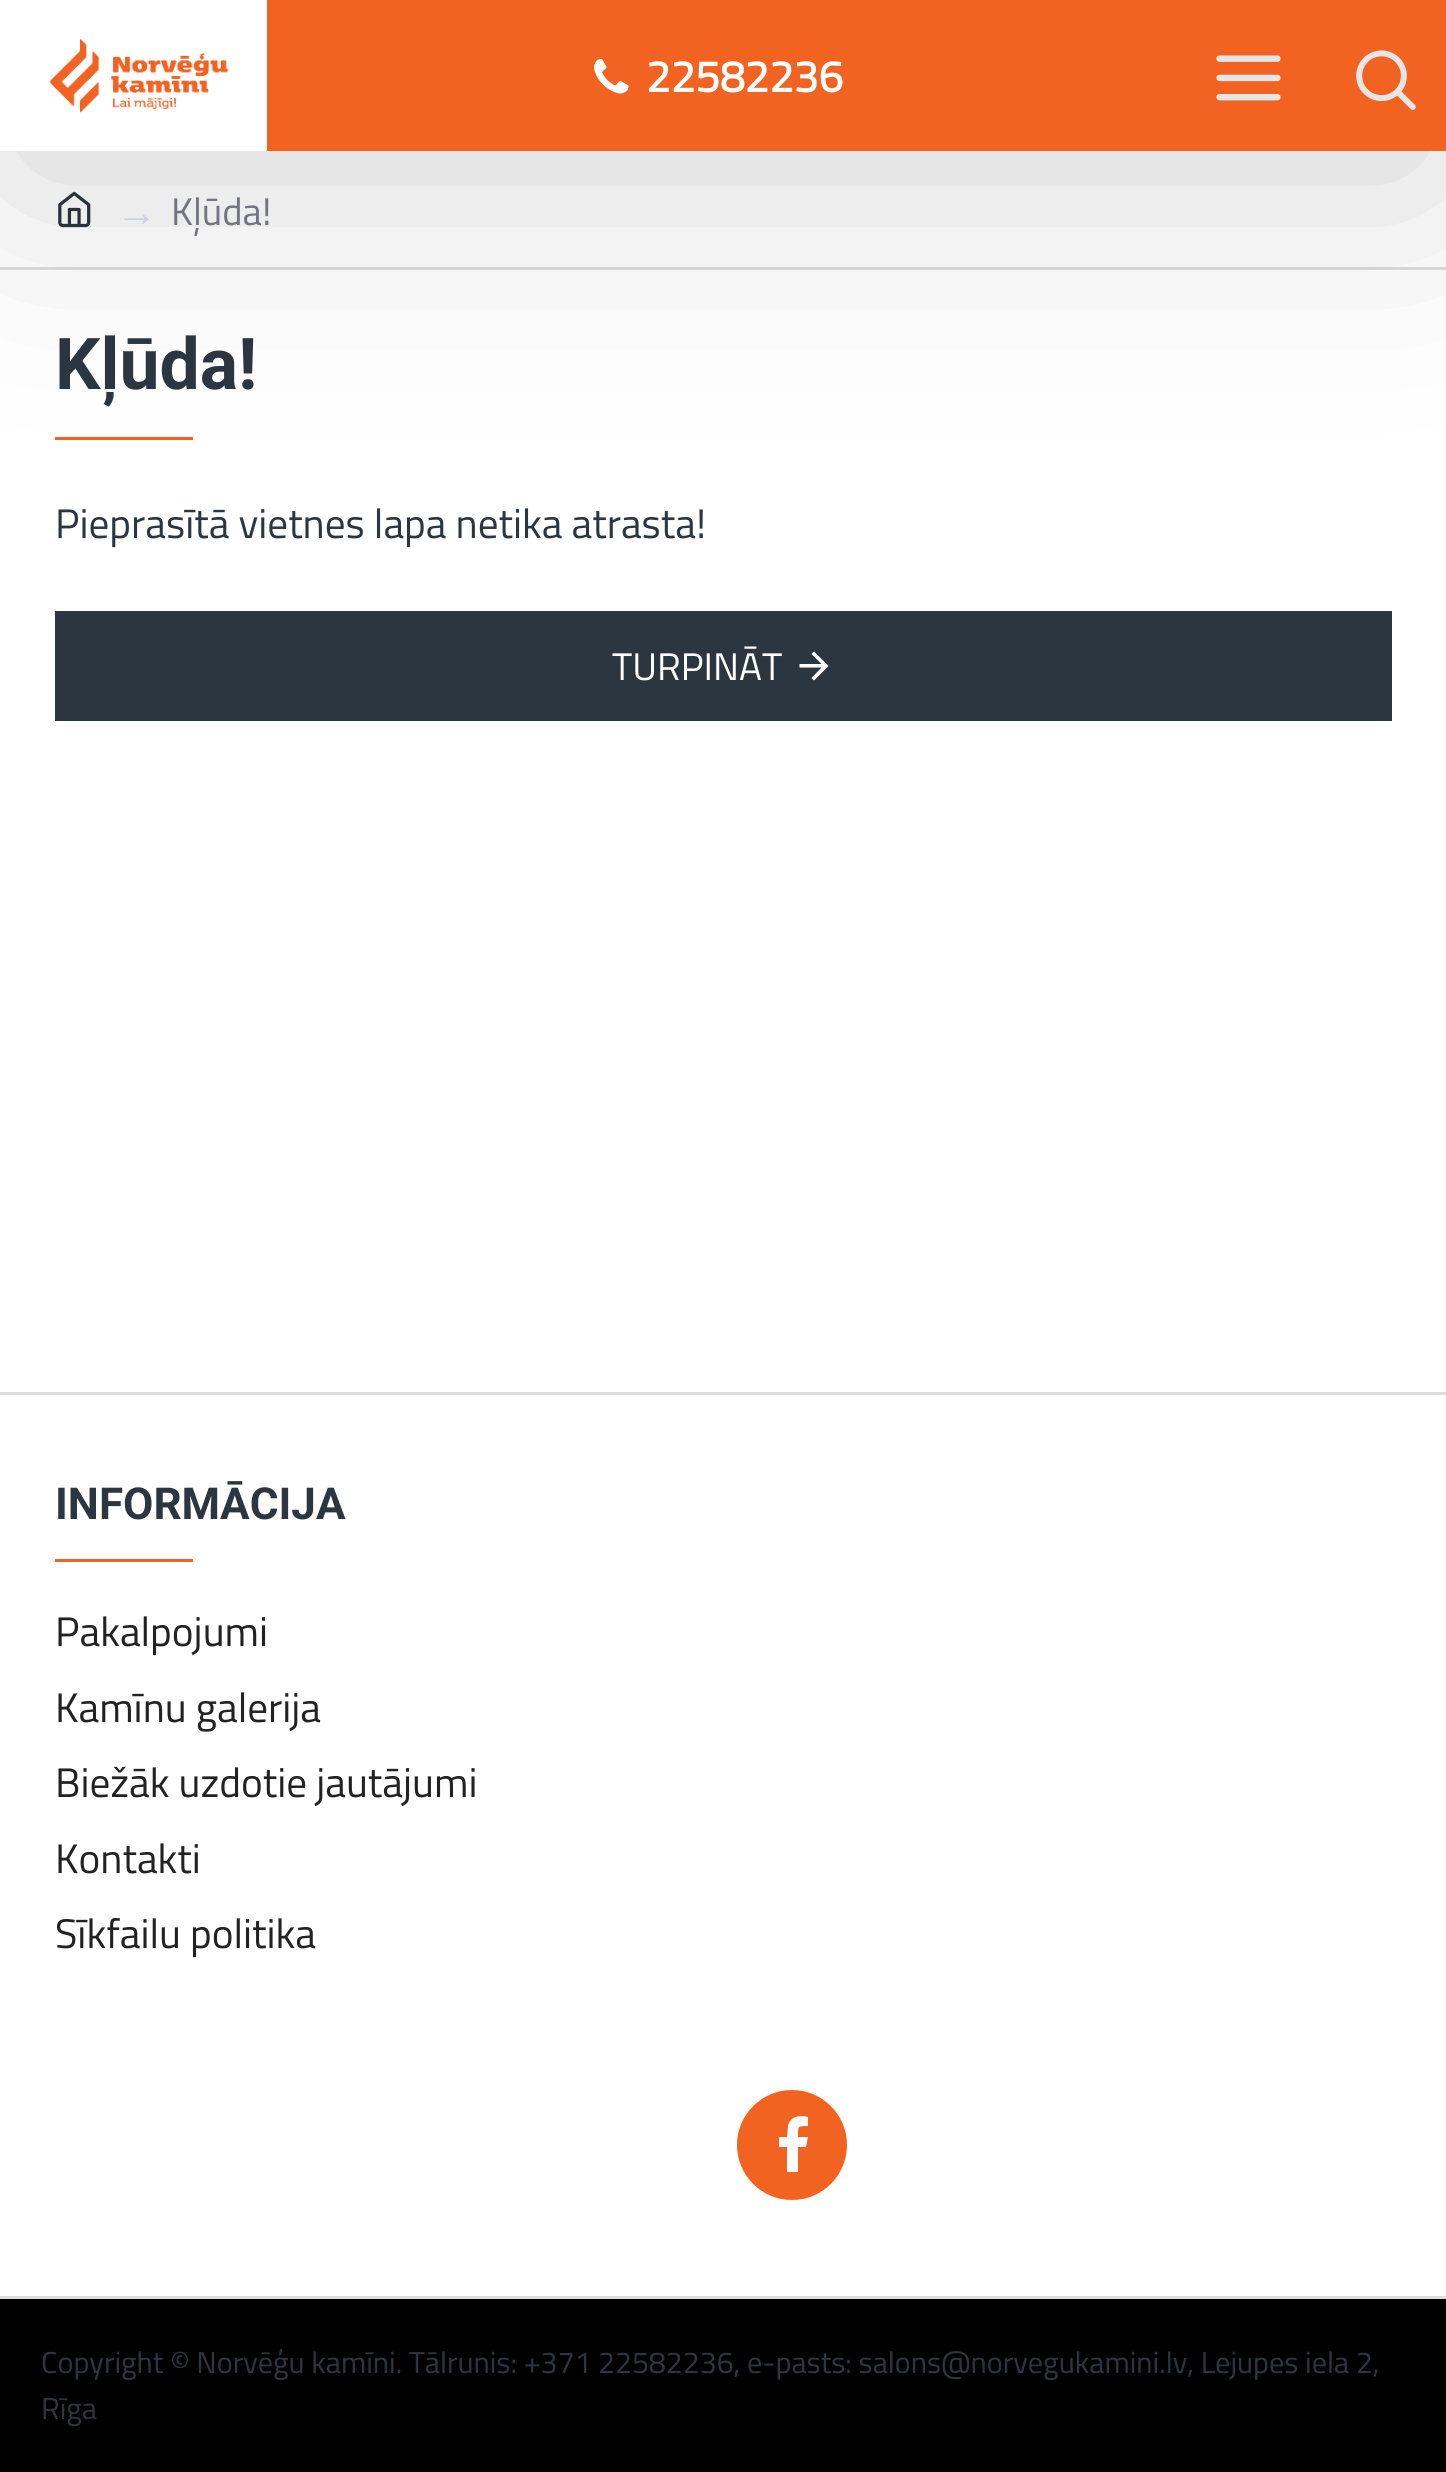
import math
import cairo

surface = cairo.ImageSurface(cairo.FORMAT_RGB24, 1446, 2472)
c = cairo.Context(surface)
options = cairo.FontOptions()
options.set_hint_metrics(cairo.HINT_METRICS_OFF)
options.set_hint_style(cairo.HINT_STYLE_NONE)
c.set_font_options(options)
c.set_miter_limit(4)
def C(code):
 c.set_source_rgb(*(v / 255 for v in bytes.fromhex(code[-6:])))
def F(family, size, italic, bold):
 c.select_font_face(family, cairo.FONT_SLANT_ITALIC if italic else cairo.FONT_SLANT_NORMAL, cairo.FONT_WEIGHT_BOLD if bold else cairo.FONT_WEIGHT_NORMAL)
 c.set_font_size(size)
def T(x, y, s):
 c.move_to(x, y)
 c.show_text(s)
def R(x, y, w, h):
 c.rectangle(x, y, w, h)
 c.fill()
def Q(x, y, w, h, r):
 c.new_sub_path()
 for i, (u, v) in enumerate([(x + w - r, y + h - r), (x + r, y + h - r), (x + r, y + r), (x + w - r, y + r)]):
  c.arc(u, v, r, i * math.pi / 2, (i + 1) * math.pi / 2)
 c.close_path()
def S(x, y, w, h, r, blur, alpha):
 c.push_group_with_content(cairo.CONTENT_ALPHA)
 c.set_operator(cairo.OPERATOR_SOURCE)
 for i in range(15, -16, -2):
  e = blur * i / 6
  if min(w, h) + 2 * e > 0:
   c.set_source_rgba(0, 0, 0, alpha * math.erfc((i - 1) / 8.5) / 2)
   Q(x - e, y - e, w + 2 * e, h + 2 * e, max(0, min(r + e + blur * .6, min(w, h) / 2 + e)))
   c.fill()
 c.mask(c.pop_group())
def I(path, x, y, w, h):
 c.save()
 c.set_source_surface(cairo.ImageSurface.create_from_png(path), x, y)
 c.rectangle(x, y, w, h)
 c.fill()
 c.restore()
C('ffffff')
c.paint()
I('5.png',58,191,33,37)
C('dddddd')
R(0,267,1446,3)
C('f26322')
R(55,437,138,3)
C('000000')
S(28,69,1391,96,0,124,.2)
C('f26322')
R(267,0,1179,151)
C('ffffff')
R(0,0,267,151)
I('1.png',49,38,180,75)
I('2.png',594,58,35,36)
F('Titillium Web',44,0,1)
T(646,92,'22582236')
I('3.png',1216,55,65,46)
I('4.png',1356,50,60,60)
F('Liberation Serif',41.25,0,0)
C('cbd1e3')
T(116,226,'→')
F('Titillium Web',38.5,0,0)
C('737381')
T(171,225,'Kļūda!')
F('Roboto',71.5,0,1)
C('2c3640')
T(55,389,'Kļūda!')
F('Titillium Web',41.25,0,0)
T(55,538,'Pieprasītā vietnes lapa netika atrasta!')
R(55,611,1337,110)
F('Titillium Web',38.5,0,0)
C('ffffff')
T(612,680,'TURPINĀT')
c.new_path()
c.move_to(814,651.5)
c.line_to(828.5,666)
c.line_to(814,680.5)
c.line_to(811.5,678)
c.line_to(821.5,667.5)
c.line_to(799.5,667.5)
c.line_to(799.5,664)
c.line_to(821.5,664)
c.line_to(811.5,654)
c.close_path()
c.fill()
C('dddddd')
R(0,1392,1446,3)
F('Roboto',44,0,1)
C('2c3640')
T(55,1519,'INFORMĀCIJA')
C('f26322')
R(55,1559,138,3)
F('Titillium Web',41.25,0,0)
C('222222')
T(55,1646,'Pakalpojumi')
T(55,1722,'Kamīnu galerija')
T(55,1797,'Biežāk uzdotie jautājumi')
T(55,1873,'Kontakti')
T(55,1948,'Sīkfailu politika')
C('f26322')
c.new_path()
c.arc(792,2145,55,0,2 * math.pi)
c.fill()
C('ffffff')
c.new_path()
c.move_to(808,2117)
c.line_to(808,2126)
c.curve_to(797,2126,798,2126,798,2137)
c.line_to(808,2137)
c.line_to(806,2147)
c.line_to(798,2147)
c.line_to(798,2172)
c.line_to(787,2172)
c.line_to(787,2147)
c.line_to(779,2147)
c.line_to(779,2137)
c.line_to(787,2137)
c.line_to(788,2126)
c.curve_to(790,2116,800,2115,808,2117)
c.close_path()
c.fill()
C('000000')
R(0,2299,1446,173)
C('dddddd')
R(0,2296,1446,3)
F('Titillium Web',30.25,0,0)
C('2c3640')
T(41,2373,'Copyright © Norvēģu kamīni. Tālrunis: +371 22582236, e-pasts: salons@norvegukamini.lv, Lejupes iela 2,')
T(41,2419,'Rīga')
surface.write_to_png('o.png')
